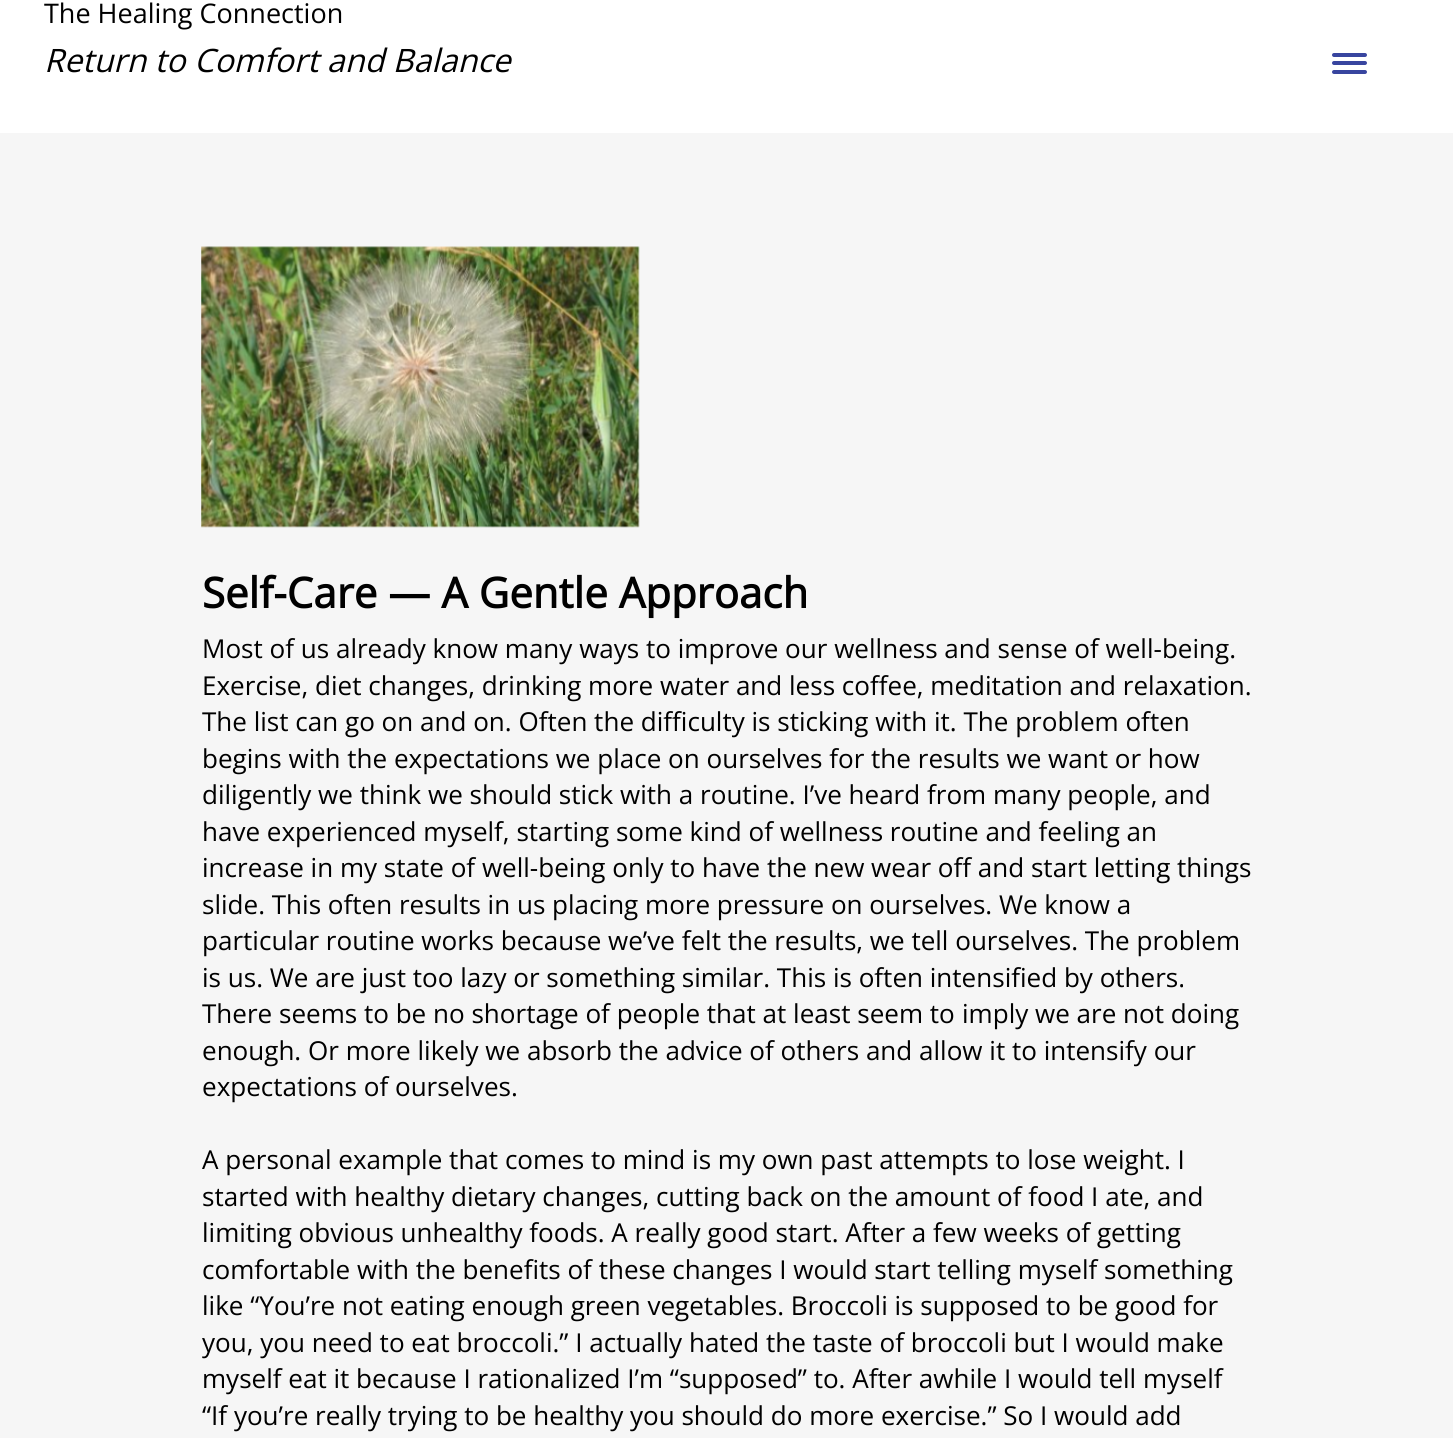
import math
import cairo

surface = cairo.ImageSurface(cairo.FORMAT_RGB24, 1453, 1438)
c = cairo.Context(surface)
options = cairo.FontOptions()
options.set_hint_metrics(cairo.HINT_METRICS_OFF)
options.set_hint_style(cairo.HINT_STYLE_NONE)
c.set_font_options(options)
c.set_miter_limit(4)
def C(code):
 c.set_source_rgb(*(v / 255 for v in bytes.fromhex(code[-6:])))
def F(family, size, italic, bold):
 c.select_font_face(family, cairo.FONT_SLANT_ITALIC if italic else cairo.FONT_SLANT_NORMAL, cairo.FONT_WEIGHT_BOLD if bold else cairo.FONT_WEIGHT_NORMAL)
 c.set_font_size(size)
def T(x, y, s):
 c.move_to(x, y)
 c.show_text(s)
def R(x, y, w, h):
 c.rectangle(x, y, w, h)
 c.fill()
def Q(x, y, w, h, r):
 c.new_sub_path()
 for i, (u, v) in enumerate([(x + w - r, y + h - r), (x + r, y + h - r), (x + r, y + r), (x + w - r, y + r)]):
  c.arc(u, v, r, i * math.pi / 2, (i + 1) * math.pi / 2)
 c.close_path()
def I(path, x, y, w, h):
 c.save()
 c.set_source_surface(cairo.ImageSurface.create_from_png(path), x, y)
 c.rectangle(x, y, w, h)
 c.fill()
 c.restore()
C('f6f6f6')
c.paint()
C('ffffff')
R(0,0,1453,133)
F('Open Sans',27,0,0)
C('000000')
T(44,23,'The Healing Connection')
F('Open Sans',32.25,1,0)
T(44,72,'Return to Comfort and Balance')
C('38459f')
Q(1332,61,35,4,2)
c.fill()
Q(1332,53,35,4,2)
c.fill()
Q(1332,70,35,4,2)
c.fill()
I('1.png',201,246,439,282)
F('Open Sans',42,0,1)
C('000000')
T(202,608,'Self-Care — A Gentle Approach')
F('Open Sans',26.05,0,0)
T(202,658,'Most of us already know many ways to improve our wellness and sense of well-being.')
T(202,695,'Exercise, diet changes, drinking more water and less coffee, meditation and relaxation.')
T(202,731,'The list can go on and on. Often the difficulty is sticking with it. The problem often')
T(202,768,'begins with the expectations we place on ourselves for the results we want or how')
T(202,804,'diligently we think we should stick with a routine. I’ve heard from many people, and')
T(202,841,'have experienced myself, starting some kind of wellness routine and feeling an')
T(202,877,'increase in my state of well-being only to have the new wear off and start letting things')
T(202,914,'slide. This often results in us placing more pressure on ourselves. We know a')
T(202,950,'particular routine works because we’ve felt the results, we tell ourselves. The problem')
T(202,987,'is us. We are just too lazy or something similar. This is often intensified by others.')
T(202,1023,'There seems to be no shortage of people that at least seem to')
T(962,1023,'imply we are not doing')
T(202,1060,'enough. Or more likely we absorb the advice of others and allow it to intensify our')
T(202,1096,'expectations of ourselves.')
T(202,1169,'A personal example that comes to mind is my own past attempts to lose weight. I')
T(202,1206,'started with healthy dietary changes, cutting back on the amount of food I ate, and')
T(202,1242,'limiting obvious unhealthy foods. A really good start. After a few weeks of getting')
T(202,1279,'comfortable with the benefits of these changes I would start telling myself something')
T(202,1315,'like “You’re not eating enough green vegetables. Broccoli is supposed to be good for')
T(202,1352,'you, you need to eat broccoli.” I actually hated the taste of broccoli but I would make')
T(202,1388,'myself eat it because I rationalized I’m “supposed” to. After awhile I would tell myself')
T(202,1425,'“If you’re really trying to be healthy you should do more exercise.” So I would add')
surface.write_to_png('o.png')
